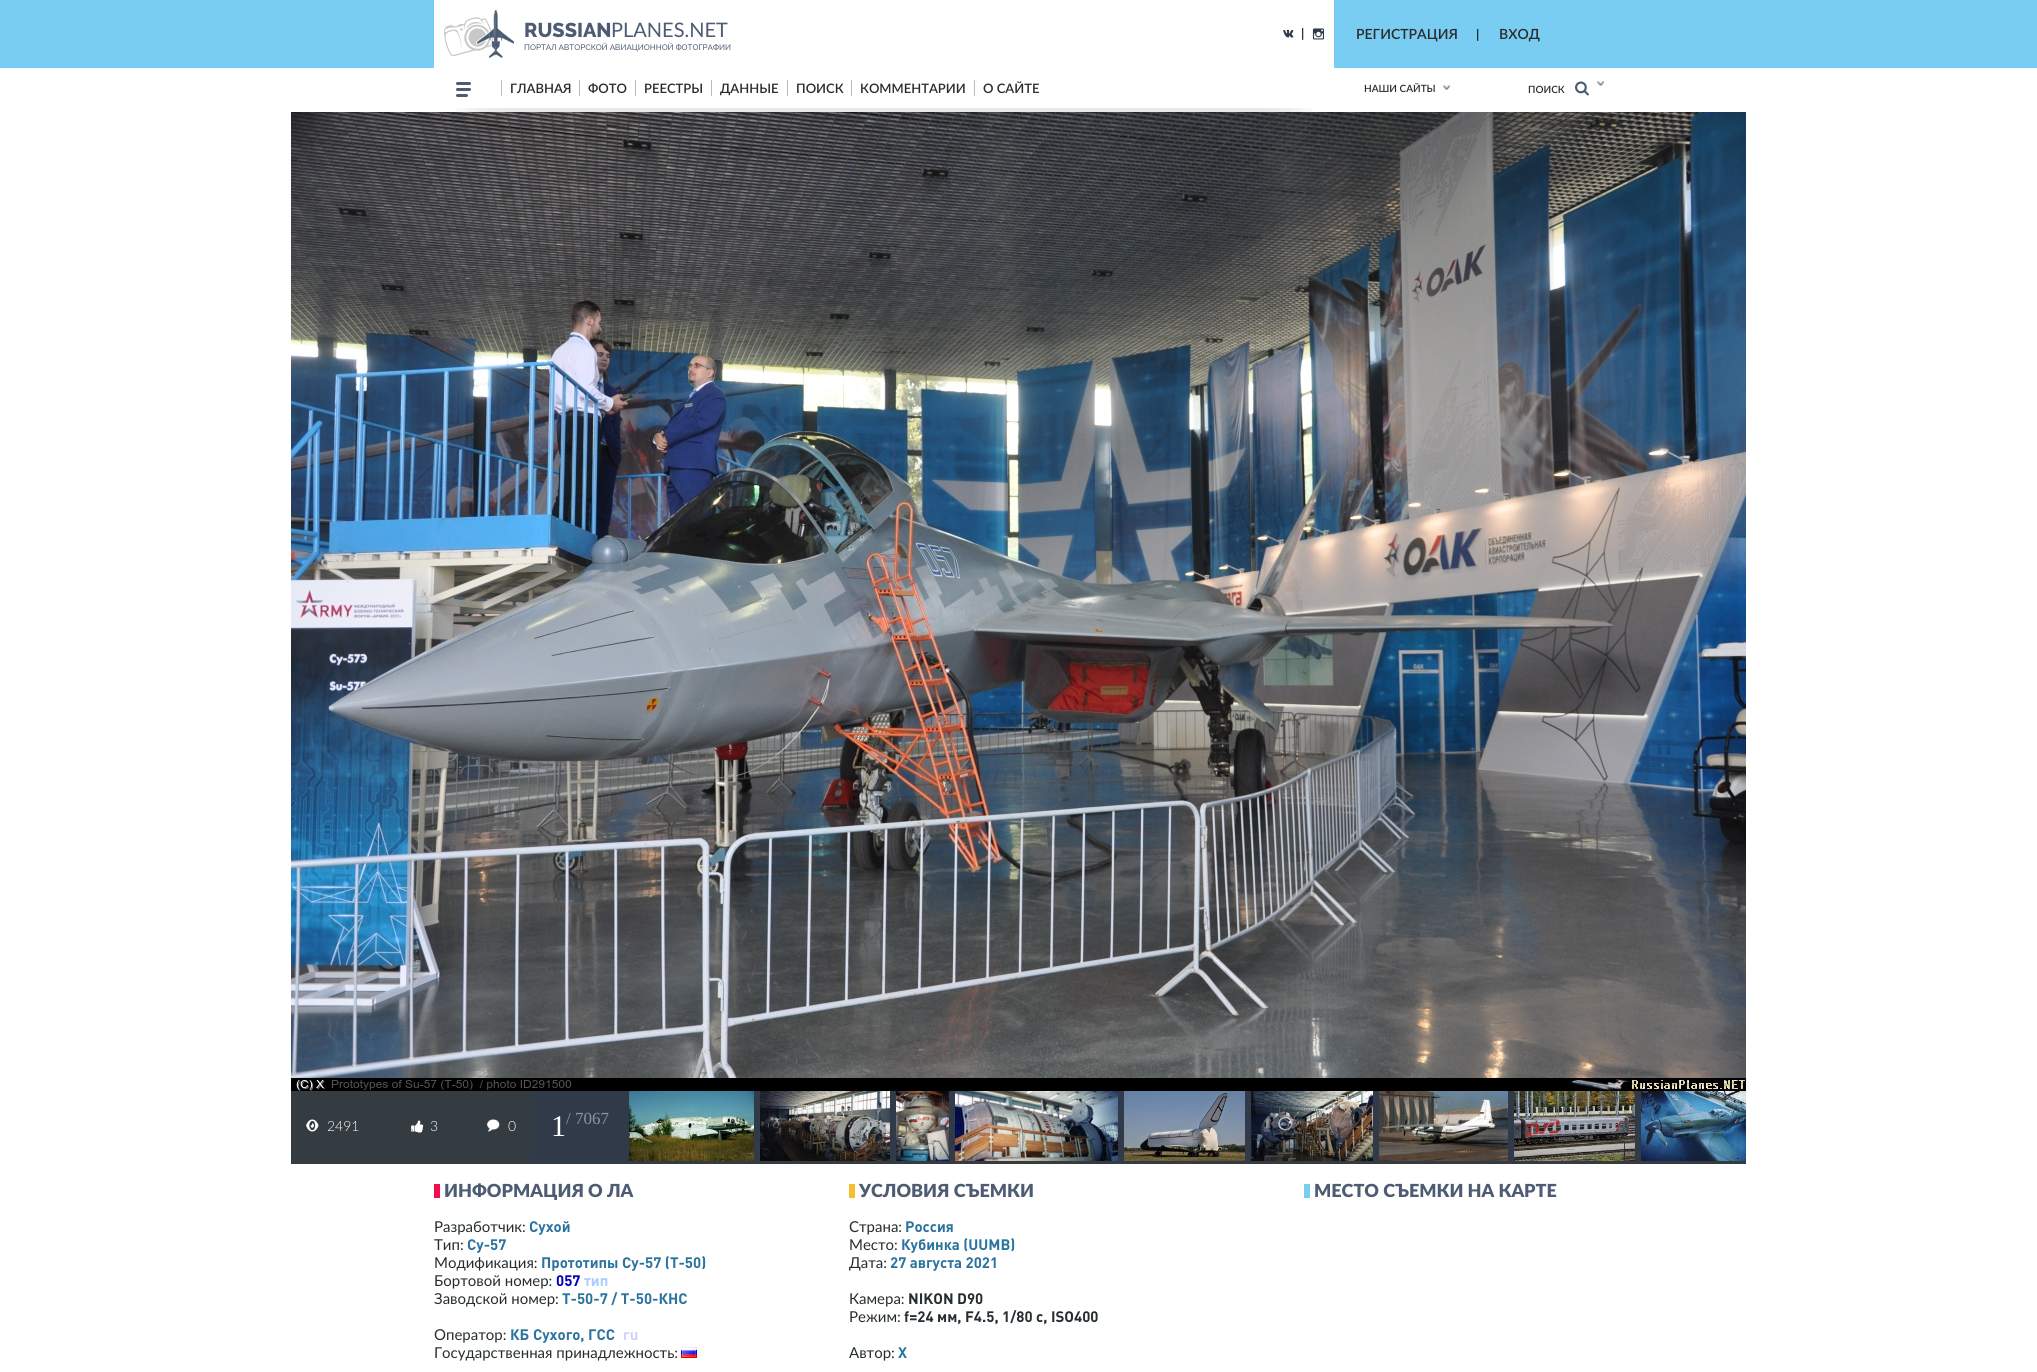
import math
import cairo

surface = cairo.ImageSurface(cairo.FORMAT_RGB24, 2037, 1372)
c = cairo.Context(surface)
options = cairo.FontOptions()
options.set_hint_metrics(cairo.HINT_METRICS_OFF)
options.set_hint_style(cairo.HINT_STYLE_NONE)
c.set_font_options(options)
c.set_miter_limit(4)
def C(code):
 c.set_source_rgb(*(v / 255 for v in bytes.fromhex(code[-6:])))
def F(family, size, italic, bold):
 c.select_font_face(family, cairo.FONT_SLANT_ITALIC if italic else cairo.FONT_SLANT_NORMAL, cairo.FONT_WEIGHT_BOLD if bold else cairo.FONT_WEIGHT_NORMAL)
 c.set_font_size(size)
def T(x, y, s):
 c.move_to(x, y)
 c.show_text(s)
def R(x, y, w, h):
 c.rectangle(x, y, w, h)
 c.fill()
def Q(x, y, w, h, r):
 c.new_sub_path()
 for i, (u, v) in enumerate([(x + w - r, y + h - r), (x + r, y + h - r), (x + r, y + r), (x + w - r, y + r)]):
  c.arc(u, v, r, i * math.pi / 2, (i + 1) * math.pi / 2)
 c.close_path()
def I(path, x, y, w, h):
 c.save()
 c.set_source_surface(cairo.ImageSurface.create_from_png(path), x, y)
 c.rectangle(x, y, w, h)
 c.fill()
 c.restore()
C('ffffff')
c.paint()
C('79ccf2')
R(0,0,2037,68)
C('ffffff')
R(434,0,900,68)
I('1.png',444,10,70,48)
F('Raleway ExtraBold',20,0,0)
C('4d5c73')
T(524,37,'RUSSIAN')
F('Lato',20,0,0)
T(611,37,'PLANES.NET')
F('Raleway Medium',8,0,0)
T(524,50,'ПОРТАЛ АВТОРСКОЙ АВИАЦИОННОЙ ФОТОГРАФИИ')
I('2.png',1283,29,11,9)
F('Roboto',14,0,0)
C('000000')
T(1301,38,'|')
I('3.png',1312,28,12,12)
F('Lato SemiBold',14,0,0)
C('2b2b2b')
T(1356,39,'РЕГИСТРАЦИЯ')
F('Roboto',14,0,0)
C('000000')
T(1476,39,'|')
F('Lato SemiBold',14,0,0)
C('2b2b2b')
T(1499,39,'ВХОД')
C('4c5b72')
Q(456,82,15,3,1.5)
c.fill()
Q(456,88,15,3,1.5)
c.fill()
Q(456,94,12,3,1.5)
c.fill()
C('b7bdc7')
R(501,80,1,16)
F('Lato SemiBold',13,0,0)
C('2b2b2b')
T(510,93,'ГЛАВНАЯ')
C('b7bdc7')
R(579,80,1,16)
C('2b2b2b')
T(588,93,'ФОТО')
C('b7bdc7')
R(635,80,1,16)
C('2b2b2b')
T(644,93,'РЕЕСТРЫ')
C('b7bdc7')
R(711,80,1,16)
C('2b2b2b')
T(720,93,'ДАННЫЕ')
C('b7bdc7')
R(787,80,1,16)
C('2b2b2b')
T(796,93,'ПОИСК')
C('b7bdc7')
R(851,80,1,16)
C('2b2b2b')
T(860,93,'КОММЕНТАРИИ')
C('b7bdc7')
R(974,80,1,16)
C('2b2b2b')
T(983,93,'О САЙТЕ')
I('4.png',456,108,856,4)
F('Lato SemiBold',10,0,0)
T(1364,92,'НАШИ САЙТЫ')
I('5.png',1443,85,7,5)
I('6.png',1575,81,14,15)
I('5.png',1597,81,7,5)
T(1528,93,'ПОИСК')
I('7.png',291,112,1455,979)
C('313a49')
R(531,1091,1110,70)
C('343b41')
R(291,1091,240,70)
I('8.png',306,1119,13,13)
F('Lato Light',14,0,0)
C('ffffff')
T(327,1131,'2491')
I('9.png',411,1120,13,13)
T(430,1131,'3')
I('10.png',487,1119,13,13)
T(508,1131,'0')
F('Liberation Serif',30,0,0)
T(551,1136,'1')
F('Liberation Serif',17,0,0)
C('8a949d')
T(566,1124,'/ 7067')
I('11.png',629,1091,125,70)
I('12.png',760,1091,130,70)
I('13.png',896,1091,53,70)
I('14.png',955,1091,163,70)
I('15.png',1124,1091,121,70)
I('16.png',1251,1091,122,70)
I('17.png',1379,1091,129,70)
I('18.png',1514,1091,121,70)
I('19.png',1641,1091,105,70)
C('343b41')
R(291,1161,1455,3)
C('f50c4d')
R(434,1184,6,14)
F('Lato Black',18,0,0)
C('4d5c73')
T(444,1197,'ИНФОРМАЦИЯ О ЛА')
F('Lato',15,0,0)
C('262d31')
T(434,1232,'Разработчик:')
F('DIN',15,0,1)
C('2b739e')
T(529,1232,'Сухой')
F('Lato',15,0,0)
C('262d31')
T(434,1250,'Тип:')
F('DIN',15,0,1)
C('2b739e')
T(467,1250,'Су-57')
F('Lato',15,0,0)
C('262d31')
T(434,1268,'Модификация:')
F('DIN',15,0,1)
C('2b739e')
T(541,1268,'Прототипы Су-57 (Т-50)')
F('Lato',15,0,0)
C('262d31')
T(434,1286,'Бортовой номер:')
F('DIN',15,0,1)
C('0000bb')
T(556,1286,'057')
C('aaccff')
T(584,1286,'тип')
F('Lato',15,0,0)
C('262d31')
T(434,1304,'Заводской номер:')
F('DIN',15,0,1)
C('2b739e')
T(562,1304,'Т-50-7 / Т-50-КНС')
F('Lato',15,0,0)
C('262d31')
T(434,1340,'Оператор:')
F('DIN',15,0,1)
C('2b739e')
T(510,1340,'КБ Сухого, ГСС')
C('d0d0ff')
T(623,1340,'ru')
F('Lato',15,0,0)
C('262d31')
T(434,1358,'Государственная принадлежность:')
I('20.png',681,1347,16,11)
C('f6bf2f')
R(849,1184,6,14)
F('Lato Black',18,0,0)
C('4d5c73')
T(859,1197,'УСЛОВИЯ СЪЕМКИ')
F('Lato',15,0,0)
C('262d31')
T(849,1232,'Страна:')
F('DIN',15,0,1)
C('2b739e')
T(905,1232,'Россия')
F('Lato',15,0,0)
C('262d31')
T(849,1250,'Место:')
F('DIN',15,0,1)
C('2b739e')
T(901,1250,'Кубинка (UUMB)')
F('Lato',15,0,0)
C('262d31')
T(849,1268,'Дата:')
F('DIN',15,0,1)
C('2b739e')
T(890,1268,'27 августа 2021')
F('Lato',15,0,0)
C('262d31')
T(849,1304,'Камера:')
F('DIN',15,0,1)
T(908,1304,'NIKON D90')
F('Lato',15,0,0)
T(849,1322,'Режим:')
F('DIN',15,0,1)
T(904,1322,'f=24 мм, F4.5, 1/80 с, ISO400')
F('Lato',15,0,0)
T(849,1358,'Автор:')
F('DIN',15,0,1)
C('2b739e')
T(898,1358,'X')
C('79ccf2')
R(1304,1184,6,14)
F('Lato Black',18,0,0)
C('4d5c73')
T(1314,1197,'МЕСТО СЪЕМКИ НА КАРТЕ')
surface.write_to_png('o.png')
